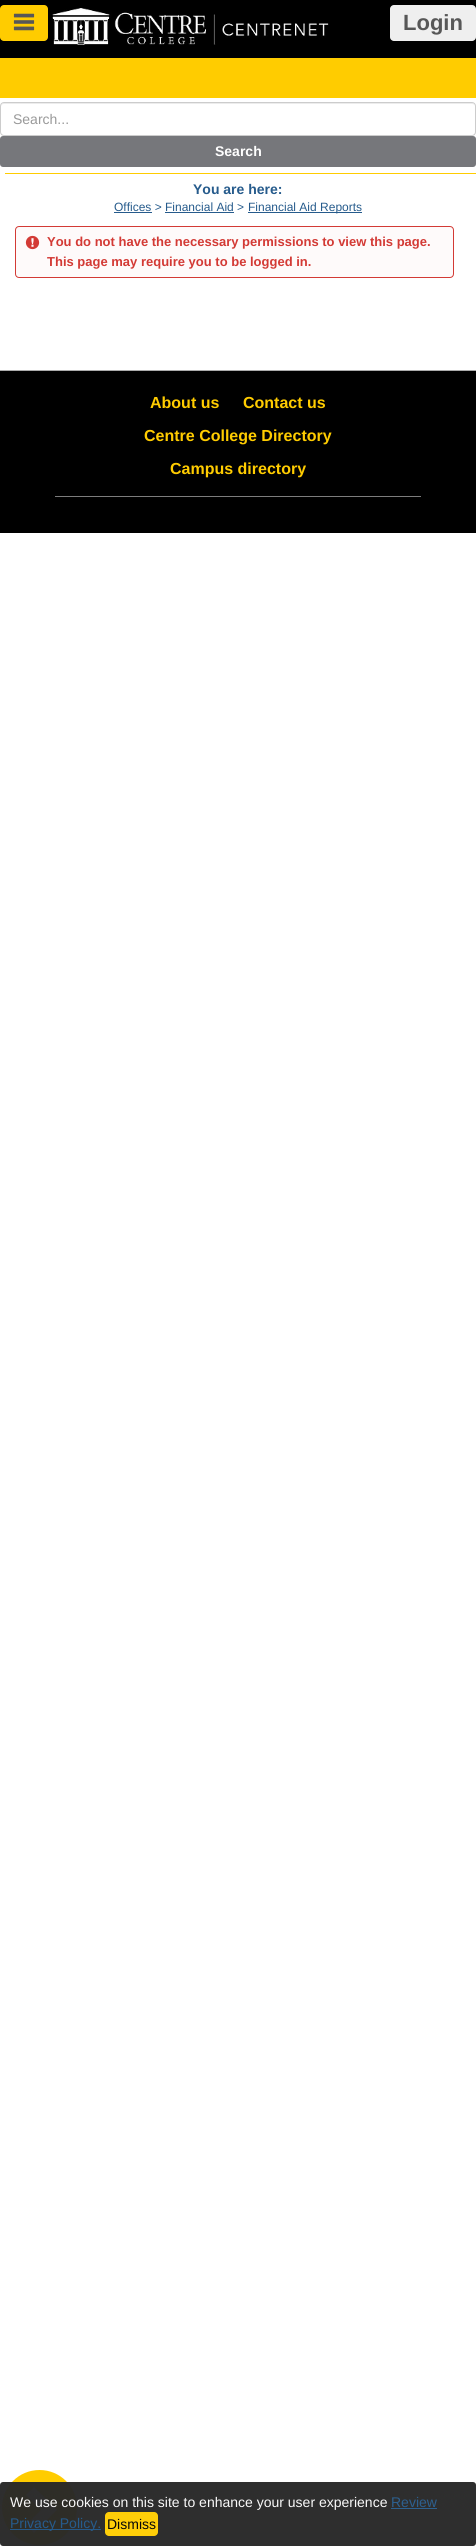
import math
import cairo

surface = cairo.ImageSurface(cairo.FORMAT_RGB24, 476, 2546)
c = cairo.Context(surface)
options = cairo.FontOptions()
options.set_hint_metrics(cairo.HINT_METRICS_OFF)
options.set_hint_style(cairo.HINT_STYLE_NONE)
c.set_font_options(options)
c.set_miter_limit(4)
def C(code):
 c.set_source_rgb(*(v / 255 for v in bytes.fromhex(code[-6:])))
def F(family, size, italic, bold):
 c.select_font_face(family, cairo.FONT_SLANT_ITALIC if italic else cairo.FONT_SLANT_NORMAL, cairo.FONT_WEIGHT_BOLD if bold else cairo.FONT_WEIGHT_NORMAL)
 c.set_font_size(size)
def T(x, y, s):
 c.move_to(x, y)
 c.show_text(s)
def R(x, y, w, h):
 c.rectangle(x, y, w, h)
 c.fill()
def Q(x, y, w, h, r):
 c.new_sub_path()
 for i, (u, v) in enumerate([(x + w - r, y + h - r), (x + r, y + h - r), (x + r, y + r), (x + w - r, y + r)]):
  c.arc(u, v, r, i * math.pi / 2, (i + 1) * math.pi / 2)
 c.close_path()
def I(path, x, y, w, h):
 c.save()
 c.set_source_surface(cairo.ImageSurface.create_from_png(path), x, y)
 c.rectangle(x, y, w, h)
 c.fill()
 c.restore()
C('ffffff')
c.paint()
C('000000')
R(0,0,476,58)
C('ffcc00')
Q(0,5,48,36,4)
c.fill()
I('1.png',13,13,22,18)
I('2.png',52,8,277,37)
C('efefef')
Q(390,5,86,36,4)
c.fill()
F('Liberation Sans',22,0,1)
C('575757')
T(403,30,'Login')
C('ffcc00')
R(0,58,476,40)
C('ececec')
c.new_path()
c.move_to(4,104)
c.line_to(472,104)
c.curve_to(474,104,475,105,475,107)
c.curve_to(475,105,474,103,472,103)
c.line_to(3,103)
c.line_to(1,105)
c.line_to(1,107)
c.curve_to(1,105,2,104,4,104)
c.close_path()
c.fill()
Q(.5,102.5,475,33,3.5)
C('cccccc')
c.set_line_width(1)
c.stroke()
F('Liberation Sans',14,0,0)
C('999999')
T(13,124,'Search...')
C('76777b')
Q(0,136,476,31,3)
c.fill()
F('Liberation Sans',14,0,1)
C('ffffff')
T(215,156,'Search')
C('ffcc00')
R(5,173,471,1)
C('265b8c')
T(193,194,'You are here:')
F('Liberation Sans',12,0,0)
T(114,211,'Offices > Financial Aid >')
R(114,212,38,1)
R(248,212,114,1)
T(248,211,'Financial Aid Reports')
R(165,212,69,1)
C('fefafa')
Q(15.5,226.5,438,51,3.5)
c.fill_preserve()
C('d33a35')
c.stroke()
I('3.png',25,235,15,15)
F('Liberation Sans',13,0,1)
T(47,246,'You do not have the necessary permissions to view this page.')
T(47,266,'This page may require you to be logged in.')
C('000000')
R(0,371,476,162)
C('ababab')
R(0,370,476,1)
C('7c7c7c')
R(55,496,366,1)
F('Liberation Sans',16,0,1)
C('ffcc00')
T(150,408,'About us')
T(243,408,'Contact us')
T(144,441,'Centre College Directory')
T(170,474,'Campus directory')
c.new_path()
c.arc(39.5,2507.5,37.5,0,2 * math.pi)
c.fill()
C('ffffff')
c.new_path()
c.move_to(34,2533)
c.line_to(26,2525)
c.line_to(41,2510)
c.line_to(26,2495)
c.line_to(34,2487)
c.line_to(57,2510)
c.close_path()
c.fill()
c.set_source_rgba(0.161,0.161,0.161,0.97)
Q(0,2482,476,64,3)
c.fill()
F('Liberation Sans',14,0,0)
C('f9f9f9')
T(10,2507,'We use cookies on this site to enhance your user experience')
C('2d608f')
T(391,2507,'Review')
R(391,2508,46,1)
c.set_source_rgba(0.149,0.357,0.549,0.97)
R(10,2529,91,1)
C('265b8c')
T(10,2528,'Privacy Policy.')
C('ffce08')
Q(105,2512,53,24,4)
c.fill()
C('080808')
T(107,2529,'Dismiss')
surface.write_to_png('o.png')
